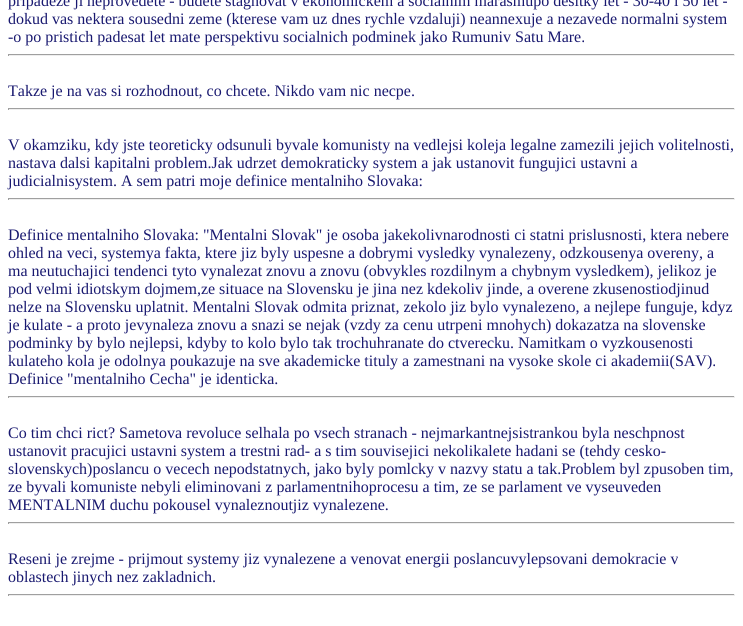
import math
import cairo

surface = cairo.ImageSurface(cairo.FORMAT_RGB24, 743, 626)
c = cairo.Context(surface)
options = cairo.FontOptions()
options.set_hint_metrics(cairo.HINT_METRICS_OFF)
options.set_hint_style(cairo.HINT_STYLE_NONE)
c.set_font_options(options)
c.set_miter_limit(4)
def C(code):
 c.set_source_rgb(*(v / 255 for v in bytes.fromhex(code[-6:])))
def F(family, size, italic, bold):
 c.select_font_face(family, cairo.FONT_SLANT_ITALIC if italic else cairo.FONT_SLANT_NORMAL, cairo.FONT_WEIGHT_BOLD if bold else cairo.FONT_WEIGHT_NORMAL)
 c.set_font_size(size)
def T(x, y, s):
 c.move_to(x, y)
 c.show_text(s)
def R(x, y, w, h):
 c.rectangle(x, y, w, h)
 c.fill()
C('ffffff')
c.paint()
F('Liberation Serif',16,0,0)
C('191970')
T(8,6,'pripadeze ji neprovedete - budete stagnovat v ekonomickem a socialnim marasmupo desitky let - 30-40 i 50 let -')
T(8,24,'dokud vas nektera sousedni zeme (kterese vam uz dnes rychle vzdaluji) neannexuje a nezavede normalni system')
T(8,42,'-o po pristich padesat let mate perspektivu socialnich podminek jako Rumuniv Satu Mare.')
C('9f9f9f')
R(8,54,727,1)
C('eeeeee')
R(734,54,1,2)
R(8,55,727,1)
C('9f9f9f')
R(8,54,1,2)
C('191970')
T(8,96,'Takze je na vas si rozhodnout, co chcete. Nikdo vam nic necpe.')
C('9f9f9f')
R(8,108,727,1)
C('eeeeee')
R(734,108,1,2)
R(8,109,727,1)
C('9f9f9f')
R(8,108,1,2)
C('191970')
T(8,150,'V okamziku, kdy jste teoreticky odsunuli byvale komunisty na vedlejsi koleja legalne zamezili jejich volitelnosti,')
T(8,168,'nastava dalsi kapitalni problem.Jak udrzet demokraticky system a jak ustanovit fungujici ustavni a')
T(8,186,'judicialnisystem. A sem patri moje definice mentalniho Slovaka:')
C('9f9f9f')
R(8,198,727,1)
C('eeeeee')
R(734,198,1,2)
R(8,199,727,1)
C('9f9f9f')
R(8,198,1,2)
C('191970')
T(8,240,'Definice mentalniho Slovaka: "Mentalni Slovak" je osoba jakekolivnarodnosti ci statni prislusnosti, ktera nebere')
T(8,258,'ohled na veci, systemya fakta, ktere jiz byly uspesne a dobrymi vysledky vynalezeny, odzkousenya overeny, a')
T(8,276,'ma neutuchajici tendenci tyto vynalezat znovu a znovu (obvykles rozdilnym a chybnym vysledkem), jelikoz je')
T(8,294,'pod velmi idiotskym dojmem,ze situace na Slovensku je jina nez kdekoliv jinde, a overene zkusenostiodjinud')
T(8,312,'nelze na Slovensku uplatnit. Mentalni Slovak odmita priznat, zekolo jiz bylo vynalezeno, a nejlepe funguje, kdyz')
T(8,330,'je kulate - a proto jevynaleza znovu a snazi se nejak (vzdy za cenu utrpeni mnohych) dokazatza na slovenske')
T(8,348,'podminky by bylo nejlepsi, kdyby to kolo bylo tak trochuhranate do ctverecku. Namitkam o vyzkousenosti')
T(8,366,'kulateho kola je odolnya poukazuje na sve akademicke tituly a zamestnani na vysoke skole ci akademii(SAV).')
T(8,384,'Definice "mentalniho Cecha" je identicka.')
C('9f9f9f')
R(8,396,727,1)
C('eeeeee')
R(734,396,1,2)
R(8,397,727,1)
C('9f9f9f')
R(8,396,1,2)
C('191970')
T(8,438,'Co tim chci rict? Sametova revoluce selhala po vsech stranach - nejmarkantnejsistrankou byla neschpnost')
T(8,456,'ustanovit pracujici ustavni system a trestni rad- a s tim souvisejici nekolikalete hadani se (tehdy cesko-')
T(8,474,'slovenskych)poslancu o vecech nepodstatnych, jako byly pomlcky v nazvy statu a tak.Problem byl zpusoben tim,')
T(8,492,'ze byvali komuniste nebyli eliminovani z parlamentnihoprocesu a tim, ze se parlament ve vyseuveden')
T(8,510,'MENTALNIM duchu pokousel vynaleznoutjiz vynalezene.')
C('9f9f9f')
R(8,522,727,1)
C('eeeeee')
R(734,522,1,2)
R(8,523,727,1)
C('9f9f9f')
R(8,522,1,2)
C('191970')
T(8,564,'Reseni je zrejme - prijmout systemy jiz vynalezene a venovat energii poslancuvylepsovani demokracie v')
T(8,582,'oblastech jinych nez zakladnich.')
C('9f9f9f')
R(8,594,727,1)
C('eeeeee')
R(734,594,1,2)
R(8,595,727,1)
C('9f9f9f')
R(8,594,1,2)
surface.write_to_png('o.png')
